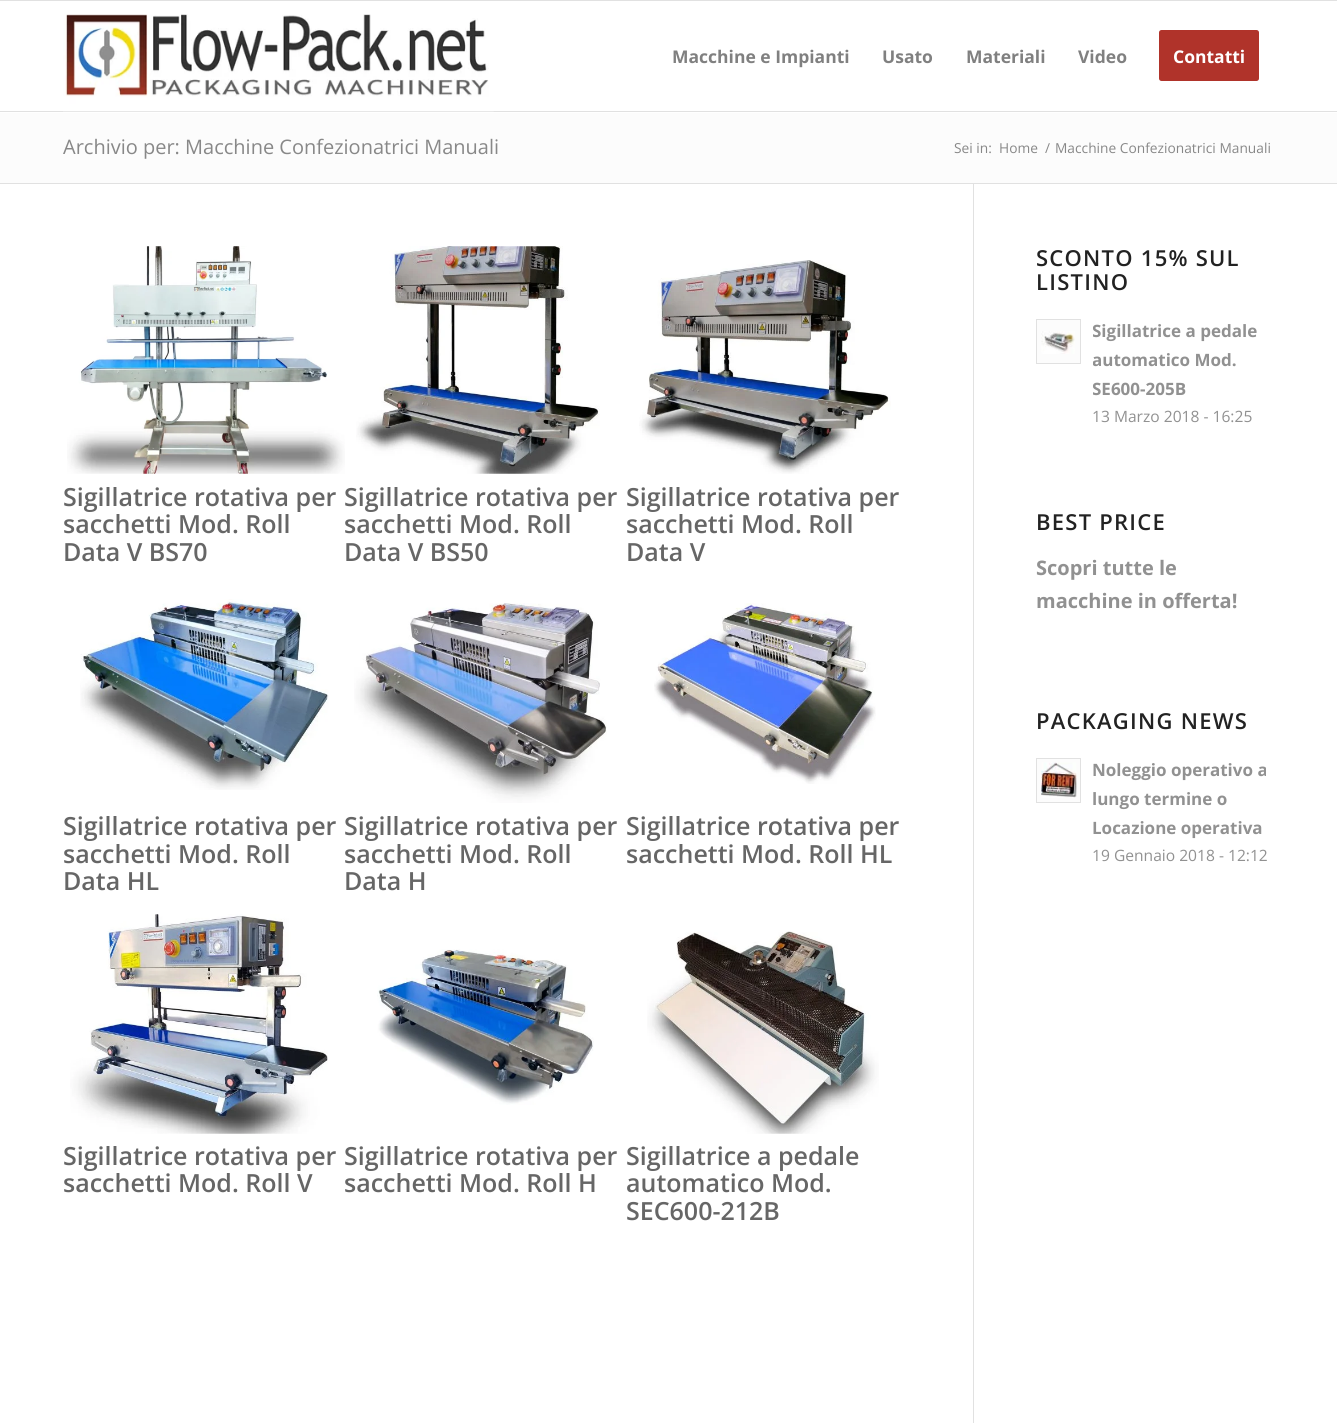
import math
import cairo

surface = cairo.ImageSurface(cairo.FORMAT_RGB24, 1337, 1423)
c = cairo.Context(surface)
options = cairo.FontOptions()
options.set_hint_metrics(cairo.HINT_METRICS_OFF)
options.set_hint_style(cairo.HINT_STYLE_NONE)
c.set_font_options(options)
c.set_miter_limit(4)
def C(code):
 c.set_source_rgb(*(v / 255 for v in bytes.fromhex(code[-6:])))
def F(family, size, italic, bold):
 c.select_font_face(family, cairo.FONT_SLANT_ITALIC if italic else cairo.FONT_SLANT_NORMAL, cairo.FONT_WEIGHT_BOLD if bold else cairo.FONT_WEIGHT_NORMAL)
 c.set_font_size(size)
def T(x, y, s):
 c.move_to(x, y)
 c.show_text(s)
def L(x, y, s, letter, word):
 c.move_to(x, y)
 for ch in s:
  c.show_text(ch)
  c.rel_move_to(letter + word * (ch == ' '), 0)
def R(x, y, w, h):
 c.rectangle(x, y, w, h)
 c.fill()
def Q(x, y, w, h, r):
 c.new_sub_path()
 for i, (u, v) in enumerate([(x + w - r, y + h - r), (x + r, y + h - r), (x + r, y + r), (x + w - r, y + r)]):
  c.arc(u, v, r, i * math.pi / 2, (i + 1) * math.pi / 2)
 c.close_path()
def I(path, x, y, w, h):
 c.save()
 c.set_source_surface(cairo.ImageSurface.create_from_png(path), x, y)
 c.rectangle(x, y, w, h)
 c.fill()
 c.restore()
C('ffffff')
c.paint()
C('e1e1e1')
R(0,0,1337,1)
R(0,111,1337,1)
I('1.png',63,14,431,98)
F('Open Sans',17.5,0,1)
C('808080')
T(672,63,'Macchine e Impianti')
T(882,63,'Usato')
T(966,63,'Materiali')
T(1078,63,'Video')
C('b0332a')
Q(1160.5,31.5,97,48,1)
c.fill_preserve()
c.set_line_width(3)
c.stroke()
C('ffffff')
T(1173,63,'Contatti')
C('fcfcfc')
R(0,113,1337,70)
F('Open Sans',20,0,0)
C('888888')
T(63,154,'Archivio per: Macchine Confezionatrici Manuali')
F('Open Sans',13.75,0,0)
T(954,153,'Sei in:')
T(999,153,'Home')
T(1045,153,'/')
T(1055,153,'Macchine Confezionatrici Manuali')
C('e1e1e1')
R(0,183,1337,1)
R(973,184,1,1239)
I('2.png',67,246,278,228)
F('Open Sans SemiBold',25,0,0)
C('666666')
T(63,506,'Sigillatrice rotativa per')
T(63,533,'sacchetti Mod. Roll')
T(63,561,'Data V BS70')
I('3.png',356,246,244,228)
T(344,506,'Sigillatrice rotativa per')
T(344,533,'sacchetti Mod. Roll')
T(344,561,'Data V BS50')
I('4.png',639,260,252,214)
T(626,506,'Sigillatrice rotativa per')
T(626,533,'sacchetti Mod. Roll')
T(626,561,'Data V')
I('5.png',80,599,249,191)
T(63,835,'Sigillatrice rotativa per')
T(63,863,'sacchetti Mod. Roll')
T(63,890,'Data HL')
I('6.png',354,603,253,200)
T(344,835,'Sigillatrice rotativa per')
T(344,863,'sacchetti Mod. Roll')
T(344,890,'Data H')
I('7.png',654,603,222,181)
T(626,835,'Sigillatrice rotativa per')
T(626,863,'sacchetti Mod. Roll HL')
I('8.png',70,914,258,220)
T(63,1165,'Sigillatrice rotativa per')
T(63,1192,'sacchetti Mod. Roll V')
I('9.png',377,949,217,156)
T(344,1165,'Sigillatrice rotativa per')
T(344,1192,'sacchetti Mod. Roll H')
I('10.png',647,931,232,203)
T(626,1165,'Sigillatrice a pedale')
T(626,1192,'automatico Mod.')
T(626,1220,'SEC600-212B')
F('Open Sans SemiBold',22,0,0)
C('222222')
L(1036,266,'SCONTO 15% SUL',1.25,0)
L(1036,290,'LISTINO',1.25,0)
C('fcfcfc')
c.rectangle(1036.5,319.5,44,44)
c.fill_preserve()
C('e1e1e1')
c.set_line_width(1)
c.stroke()
I('11.png',1041,331,34,23)
c.save()
c.rectangle(1093,316,182,115)
c.clip()
F('Open Sans',17,0,1)
C('919191')
T(1092,337,'Sigillatrice a pedale')
T(1092,366,'automatico Mod.')
T(1092,395,'SE600-205B')
c.restore()
F('Open Sans',15.6,0,0)
C('919191')
T(1092,422,'13 Marzo 2018 - 16:25')
F('Open Sans SemiBold',22,0,0)
C('222222')
L(1036,530,'BEST PRICE',1.25,0)
F('Open Sans',20,0,1)
C('919191')
T(1036,575,'Scopri tutte le')
T(1036,608,'macchine in offerta!')
F('Open Sans SemiBold',22,0,0)
C('222222')
L(1036,729,'PACKAGING NEWS',1.25,0)
C('fcfcfc')
c.rectangle(1036.5,758.5,44,44)
c.fill_preserve()
C('e1e1e1')
c.stroke()
I('12.png',1041,762,36,36)
F('Open Sans',17,0,1)
C('919191')
T(1092,776,'Noleggio operativo a')
T(1092,805,'lungo termine o')
T(1092,834,'Locazione operativa')
F('Open Sans',15.6,0,0)
T(1092,861,'19 Gennaio 2018 - 12:12')
surface.write_to_png('o.png')
